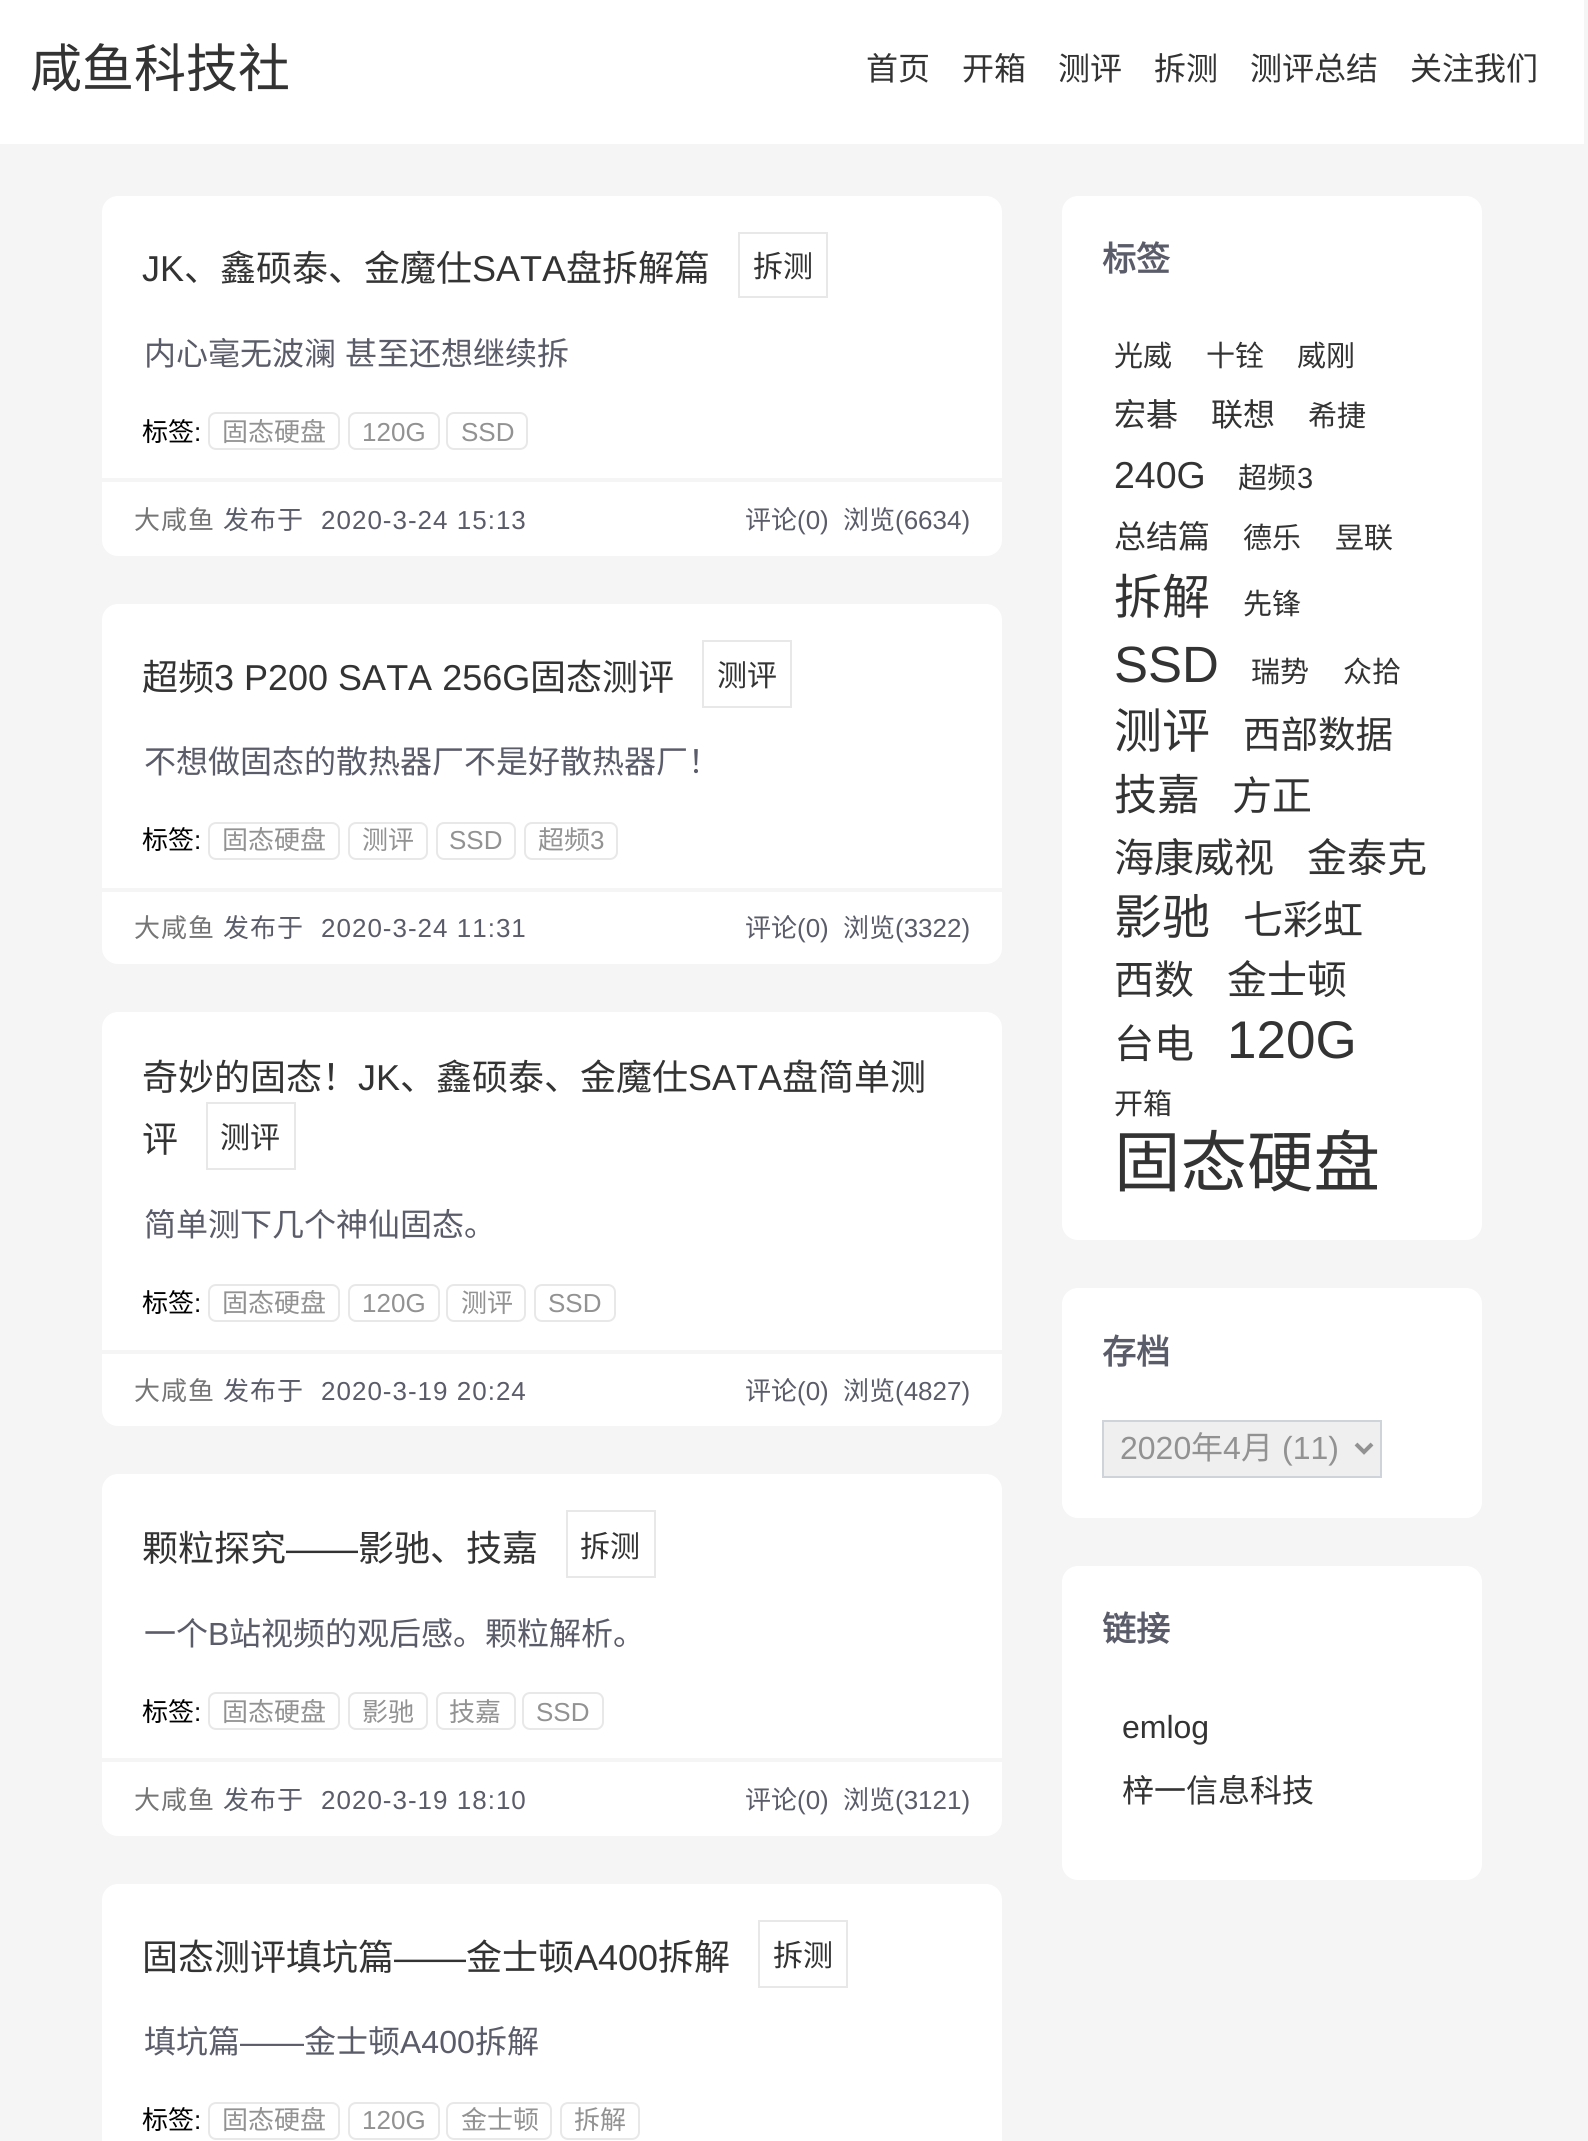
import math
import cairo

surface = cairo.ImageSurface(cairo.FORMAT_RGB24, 1588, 2141)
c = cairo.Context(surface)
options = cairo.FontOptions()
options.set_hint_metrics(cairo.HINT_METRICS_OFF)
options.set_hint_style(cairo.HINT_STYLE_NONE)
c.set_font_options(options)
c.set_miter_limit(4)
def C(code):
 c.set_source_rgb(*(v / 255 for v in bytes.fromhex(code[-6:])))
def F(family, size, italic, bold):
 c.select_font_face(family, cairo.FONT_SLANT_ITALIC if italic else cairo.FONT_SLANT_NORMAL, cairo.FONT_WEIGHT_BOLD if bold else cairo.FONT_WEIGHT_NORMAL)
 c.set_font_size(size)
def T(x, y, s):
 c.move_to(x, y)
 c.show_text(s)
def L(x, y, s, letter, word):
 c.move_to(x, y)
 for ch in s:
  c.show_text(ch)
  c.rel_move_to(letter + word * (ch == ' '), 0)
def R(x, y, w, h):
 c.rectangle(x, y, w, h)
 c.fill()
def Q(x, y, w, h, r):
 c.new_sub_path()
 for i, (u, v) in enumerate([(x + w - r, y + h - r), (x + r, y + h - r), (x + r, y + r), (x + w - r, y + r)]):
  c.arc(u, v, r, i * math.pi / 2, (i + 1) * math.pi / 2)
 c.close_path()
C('f5f5f6')
c.paint()
C('ffffff')
R(0,0,1584,144)
F('Noto Sans CJK SC',52,0,0)
C('333333')
T(30,87,'咸鱼科技社')
F('Noto Sans CJK SC',32,0,0)
T(866,80,'首页')
T(962,80,'开箱')
T(1058,80,'测评')
T(1154,80,'拆测')
T(1250,80,'测评总结')
T(1410,80,'关注我们')
C('ffffff')
Q(102,196,900,360,16)
c.fill()
F('Liberation Sans',36,0,0)
C('333333')
T(142,281,'JK')
F('Noto Sans CJK SC',36,0,0)
T(184,281,'、鑫硕泰、金魔仕')
F('Liberation Sans',36,0,0)
T(472,281,'SATA')
F('Noto Sans CJK SC',36,0,0)
T(566,281,'盘拆解篇')
c.rectangle(739,233,88,64)
C('e8e8e8')
c.stroke()
F('Noto Sans CJK SC',30,0,0)
C('333333')
T(753,277,'拆测')
F('Noto Sans CJK SC',32,0,0)
C('5a5c69')
T(144,365,'内心毫无波澜')
T(345,365,'甚至还想继续拆')
F('Noto Sans CJK SC',26,0,0)
C('000000')
T(142,441,'标签')
F('Liberation Sans',26,0,0)
T(194,441,':')
Q(209,413,130,36,7)
C('e8e8e8')
c.stroke()
F('Noto Sans CJK SC',26,0,0)
C('929292')
T(222,441,'固态硬盘')
Q(349,413,90,36,7)
C('e8e8e8')
c.stroke()
F('Liberation Sans',26,0,0)
C('929292')
T(362,441,'120G')
Q(447,413,80,36,7)
C('e8e8e8')
c.stroke()
C('929292')
T(461,441,'SSD')
C('f5f5f6')
R(102,478,900,4)
F('Noto Sans CJK SC',26,0,0)
C('757575')
L(134,529,'大咸鱼',1,0)
C('5a5c69')
L(223,529,'发布于',1,0)
F('Liberation Sans',26,0,0)
L(321,529,'2020-3-24 15:13',1,0)
F('Noto Sans CJK SC',26,0,0)
T(745,529,'评论')
F('Liberation Sans',26,0,0)
T(797,529,'(0)')
F('Noto Sans CJK SC',26,0,0)
T(843,529,'浏览')
F('Liberation Sans',26,0,0)
T(895,529,'(6634)')
C('ffffff')
Q(102,604,900,360,16)
c.fill()
F('Noto Sans CJK SC',36,0,0)
C('333333')
T(142,690,'超频')
F('Liberation Sans',36,0,0)
T(214,690,'3 P200 SATA 256G')
F('Noto Sans CJK SC',36,0,0)
T(530,690,'固态测评')
c.rectangle(703,641,88,66)
C('e8e8e8')
c.stroke()
F('Noto Sans CJK SC',30,0,0)
C('333333')
T(717,686,'测评')
F('Noto Sans CJK SC',32,0,0)
C('5a5c69')
T(144,773,'不想做固态的散热器厂不是好散热器厂！')
F('Noto Sans CJK SC',26,0,0)
C('000000')
T(142,849,'标签')
F('Liberation Sans',26,0,0)
T(194,849,':')
Q(209,823,130,36,7)
C('e8e8e8')
c.stroke()
F('Noto Sans CJK SC',26,0,0)
C('929292')
T(222,849,'固态硬盘')
Q(349,823,78,36,7)
C('e8e8e8')
c.stroke()
C('929292')
T(362,849,'测评')
Q(437,823,78,36,7)
C('e8e8e8')
c.stroke()
F('Liberation Sans',26,0,0)
C('929292')
T(449,849,'SSD')
Q(525,823,92,36,7)
C('e8e8e8')
c.stroke()
F('Noto Sans CJK SC',26,0,0)
C('929292')
T(538,849,'超频')
F('Liberation Sans',26,0,0)
T(590,849,'3')
C('f5f5f6')
R(102,888,900,4)
F('Noto Sans CJK SC',26,0,0)
C('757575')
L(134,937,'大咸鱼',1,0)
C('5a5c69')
L(223,937,'发布于',1,0)
F('Liberation Sans',26,0,0)
L(321,937,'2020-3-24 11:31',1,0)
F('Noto Sans CJK SC',26,0,0)
T(745,937,'评论')
F('Liberation Sans',26,0,0)
T(797,937,'(0)')
F('Noto Sans CJK SC',26,0,0)
T(843,937,'浏览')
F('Liberation Sans',26,0,0)
T(895,937,'(3322)')
C('ffffff')
Q(102,1012,900,414,16)
c.fill()
F('Noto Sans CJK SC',36,0,0)
C('333333')
T(142,1090,'奇妙的固态！')
F('Liberation Sans',36,0,0)
T(358,1090,'JK')
F('Noto Sans CJK SC',36,0,0)
T(400,1090,'、鑫硕泰、金魔仕')
F('Liberation Sans',36,0,0)
T(688,1090,'SATA')
F('Noto Sans CJK SC',36,0,0)
T(782,1090,'盘简单测')
T(142,1152,'评')
c.rectangle(207,1103,88,66)
C('e8e8e8')
c.stroke()
F('Noto Sans CJK SC',30,0,0)
C('333333')
T(220,1148,'测评')
F('Noto Sans CJK SC',32,0,0)
C('5a5c69')
T(144,1236,'简单测下几个神仙固态。')
F('Noto Sans CJK SC',26,0,0)
C('000000')
T(142,1312,'标签')
F('Liberation Sans',26,0,0)
T(194,1312,':')
Q(209,1285,130,36,7)
C('e8e8e8')
c.stroke()
F('Noto Sans CJK SC',26,0,0)
C('929292')
T(222,1312,'固态硬盘')
Q(349,1285,90,36,7)
C('e8e8e8')
c.stroke()
F('Liberation Sans',26,0,0)
C('929292')
T(362,1312,'120G')
Q(447,1285,78,36,7)
C('e8e8e8')
c.stroke()
F('Noto Sans CJK SC',26,0,0)
C('929292')
T(461,1312,'测评')
Q(535,1285,80,36,7)
C('e8e8e8')
c.stroke()
F('Liberation Sans',26,0,0)
C('929292')
T(548,1312,'SSD')
C('f5f5f6')
R(102,1350,900,4)
F('Noto Sans CJK SC',26,0,0)
C('757575')
L(134,1400,'大咸鱼',1,0)
C('5a5c69')
L(223,1400,'发布于',1,0)
F('Liberation Sans',26,0,0)
L(321,1400,'2020-3-19 20:24',1,0)
F('Noto Sans CJK SC',26,0,0)
T(745,1400,'评论')
F('Liberation Sans',26,0,0)
T(797,1400,'(0)')
F('Noto Sans CJK SC',26,0,0)
T(843,1400,'浏览')
F('Liberation Sans',26,0,0)
T(895,1400,'(4827)')
C('ffffff')
Q(102,1474,900,362,16)
c.fill()
F('Noto Sans CJK SC',36,0,0)
C('333333')
T(142,1561,'颗粒探究')
F('Liberation Sans',36,0,0)
T(286,1561,'——')
F('Noto Sans CJK SC',36,0,0)
T(358,1561,'影驰、技嘉')
c.rectangle(567,1511,88,66)
C('e8e8e8')
c.stroke()
F('Noto Sans CJK SC',30,0,0)
C('333333')
T(580,1557,'拆测')
F('Noto Sans CJK SC',32,0,0)
C('5a5c69')
T(144,1645,'一个')
F('Liberation Sans',32,0,0)
T(208,1645,'B')
F('Noto Sans CJK SC',32,0,0)
T(229,1645,'站视频的观后感。颗粒解析。')
F('Noto Sans CJK SC',26,0,0)
C('000000')
T(142,1721,'标签')
F('Liberation Sans',26,0,0)
T(194,1721,':')
Q(209,1693,130,36,7)
C('e8e8e8')
c.stroke()
F('Noto Sans CJK SC',26,0,0)
C('929292')
T(222,1721,'固态硬盘')
Q(349,1693,78,36,7)
C('e8e8e8')
c.stroke()
C('929292')
T(362,1721,'影驰')
Q(437,1693,78,36,7)
C('e8e8e8')
c.stroke()
C('929292')
T(449,1721,'技嘉')
Q(523,1693,80,36,7)
C('e8e8e8')
c.stroke()
F('Liberation Sans',26,0,0)
C('929292')
T(536,1721,'SSD')
C('f5f5f6')
R(102,1758,900,4)
F('Noto Sans CJK SC',26,0,0)
C('757575')
L(134,1809,'大咸鱼',1,0)
C('5a5c69')
L(223,1809,'发布于',1,0)
F('Liberation Sans',26,0,0)
L(321,1809,'2020-3-19 18:10',1,0)
F('Noto Sans CJK SC',26,0,0)
T(745,1809,'评论')
F('Liberation Sans',26,0,0)
T(797,1809,'(0)')
F('Noto Sans CJK SC',26,0,0)
T(843,1809,'浏览')
F('Liberation Sans',26,0,0)
T(895,1809,'(3121)')
C('ffffff')
Q(102,1884,900,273,16)
c.fill()
F('Noto Sans CJK SC',36,0,0)
C('333333')
T(142,1970,'固态测评填坑篇')
F('Liberation Sans',36,0,0)
T(394,1970,'——')
F('Noto Sans CJK SC',36,0,0)
T(466,1970,'金士顿')
F('Liberation Sans',36,0,0)
T(574,1970,'A400')
F('Noto Sans CJK SC',36,0,0)
T(658,1970,'拆解')
c.rectangle(759,1921,88,66)
C('e8e8e8')
c.stroke()
F('Noto Sans CJK SC',30,0,0)
C('333333')
T(773,1966,'拆测')
F('Noto Sans CJK SC',32,0,0)
C('5a5c69')
T(144,2053,'填坑篇')
F('Liberation Sans',32,0,0)
T(240,2053,'——')
F('Noto Sans CJK SC',32,0,0)
T(304,2053,'金士顿')
F('Liberation Sans',32,0,0)
T(400,2053,'A400')
F('Noto Sans CJK SC',32,0,0)
T(475,2053,'拆解')
F('Noto Sans CJK SC',26,0,0)
C('000000')
T(142,2129,'标签')
F('Liberation Sans',26,0,0)
T(194,2129,':')
Q(209,2103,130,36,7)
C('e8e8e8')
c.stroke()
F('Noto Sans CJK SC',26,0,0)
C('929292')
T(222,2129,'固态硬盘')
Q(349,2103,90,36,7)
C('e8e8e8')
c.stroke()
F('Liberation Sans',26,0,0)
C('929292')
T(362,2129,'120G')
Q(447,2103,104,36,7)
C('e8e8e8')
c.stroke()
F('Noto Sans CJK SC',26,0,0)
C('929292')
T(461,2129,'金士顿')
Q(561,2103,78,36,7)
C('e8e8e8')
c.stroke()
C('929292')
T(574,2129,'拆解')
C('ffffff')
Q(1062,196,420,1044,16)
c.fill()
F('Noto Sans CJK SC',34,0,1)
C('5a5c69')
T(1102,271,'标签')
F('Noto Sans CJK SC',29,0,0)
C('333333')
T(1114,366,'光威')
T(1206,366,'十铨')
T(1297,366,'威刚')
F('Noto Sans CJK SC',32,0,0)
T(1114,426,'宏碁')
T(1211,426,'联想')
F('Noto Sans CJK SC',29,0,0)
T(1308,426,'希捷')
F('Liberation Sans',37.5,0,0)
T(1114,488,'240G')
F('Noto Sans CJK SC',29,0,0)
T(1238,488,'超频')
F('Liberation Sans',29,0,0)
T(1297,488,'3')
F('Noto Sans CJK SC',32,0,0)
T(1114,548,'总结篇')
F('Noto Sans CJK SC',29,0,0)
T(1243,548,'德乐')
T(1335,548,'昱联')
F('Noto Sans CJK SC',48,0,0)
T(1114,614,'拆解')
F('Noto Sans CJK SC',29,0,0)
T(1243,614,'先锋')
F('Liberation Sans',51,0,0)
T(1114,682,'SSD')
F('Noto Sans CJK SC',29,0,0)
T(1251,682,'瑞势')
T(1343,682,'众拾')
F('Noto Sans CJK SC',48,0,0)
T(1114,748,'测评')
F('Noto Sans CJK SC',37.5,0,0)
T(1243,748,'西部数据')
F('Noto Sans CJK SC',43,0,0)
T(1114,810,'技嘉')
F('Noto Sans CJK SC',40,0,0)
T(1232,810,'方正')
T(1114,872,'海康威视')
T(1307,872,'金泰克')
F('Noto Sans CJK SC',48,0,0)
T(1114,934,'影驰')
F('Noto Sans CJK SC',40,0,0)
T(1243,934,'七彩虹')
T(1114,994,'西数')
T(1227,994,'金士顿')
T(1114,1058,'台电')
F('Liberation Sans',53,0,0)
T(1227,1058,'120G')
F('Noto Sans CJK SC',29,0,0)
T(1114,1114,'开箱')
F('Noto Sans CJK SC',66.5,0,0)
T(1114,1186,'固态硬盘')
C('ffffff')
Q(1062,1288,420,230,16)
c.fill()
F('Noto Sans CJK SC',34,0,1)
C('5a5c69')
T(1102,1364,'存档')
C('efefef')
c.rectangle(1103,1421,278,56)
c.fill_preserve()
C('ced4da')
c.stroke()
c.new_path()
c.move_to(1356,1444)
c.line_to(1364,1452)
c.line_to(1372,1444)
C('929292')
c.set_line_width(4)
c.stroke()
F('Liberation Sans',32,0,0)
T(1120,1459,'2020')
F('Noto Sans CJK SC',32,0,0)
T(1191,1459,'年')
F('Liberation Sans',32,0,0)
T(1223,1459,'4')
F('Noto Sans CJK SC',32,0,0)
T(1241,1459,'月')
F('Liberation Sans',32,0,0)
T(1282,1459,'(11)')
C('ffffff')
Q(1062,1566,420,314,16)
c.fill()
F('Noto Sans CJK SC',34,0,1)
C('5a5c69')
T(1102,1641,'链接')
F('Liberation Sans',32,0,0)
C('333333')
T(1122,1738,'emlog')
F('Noto Sans CJK SC',32,0,0)
T(1122,1802,'梓一信息科技')
surface.write_to_png('o.png')
